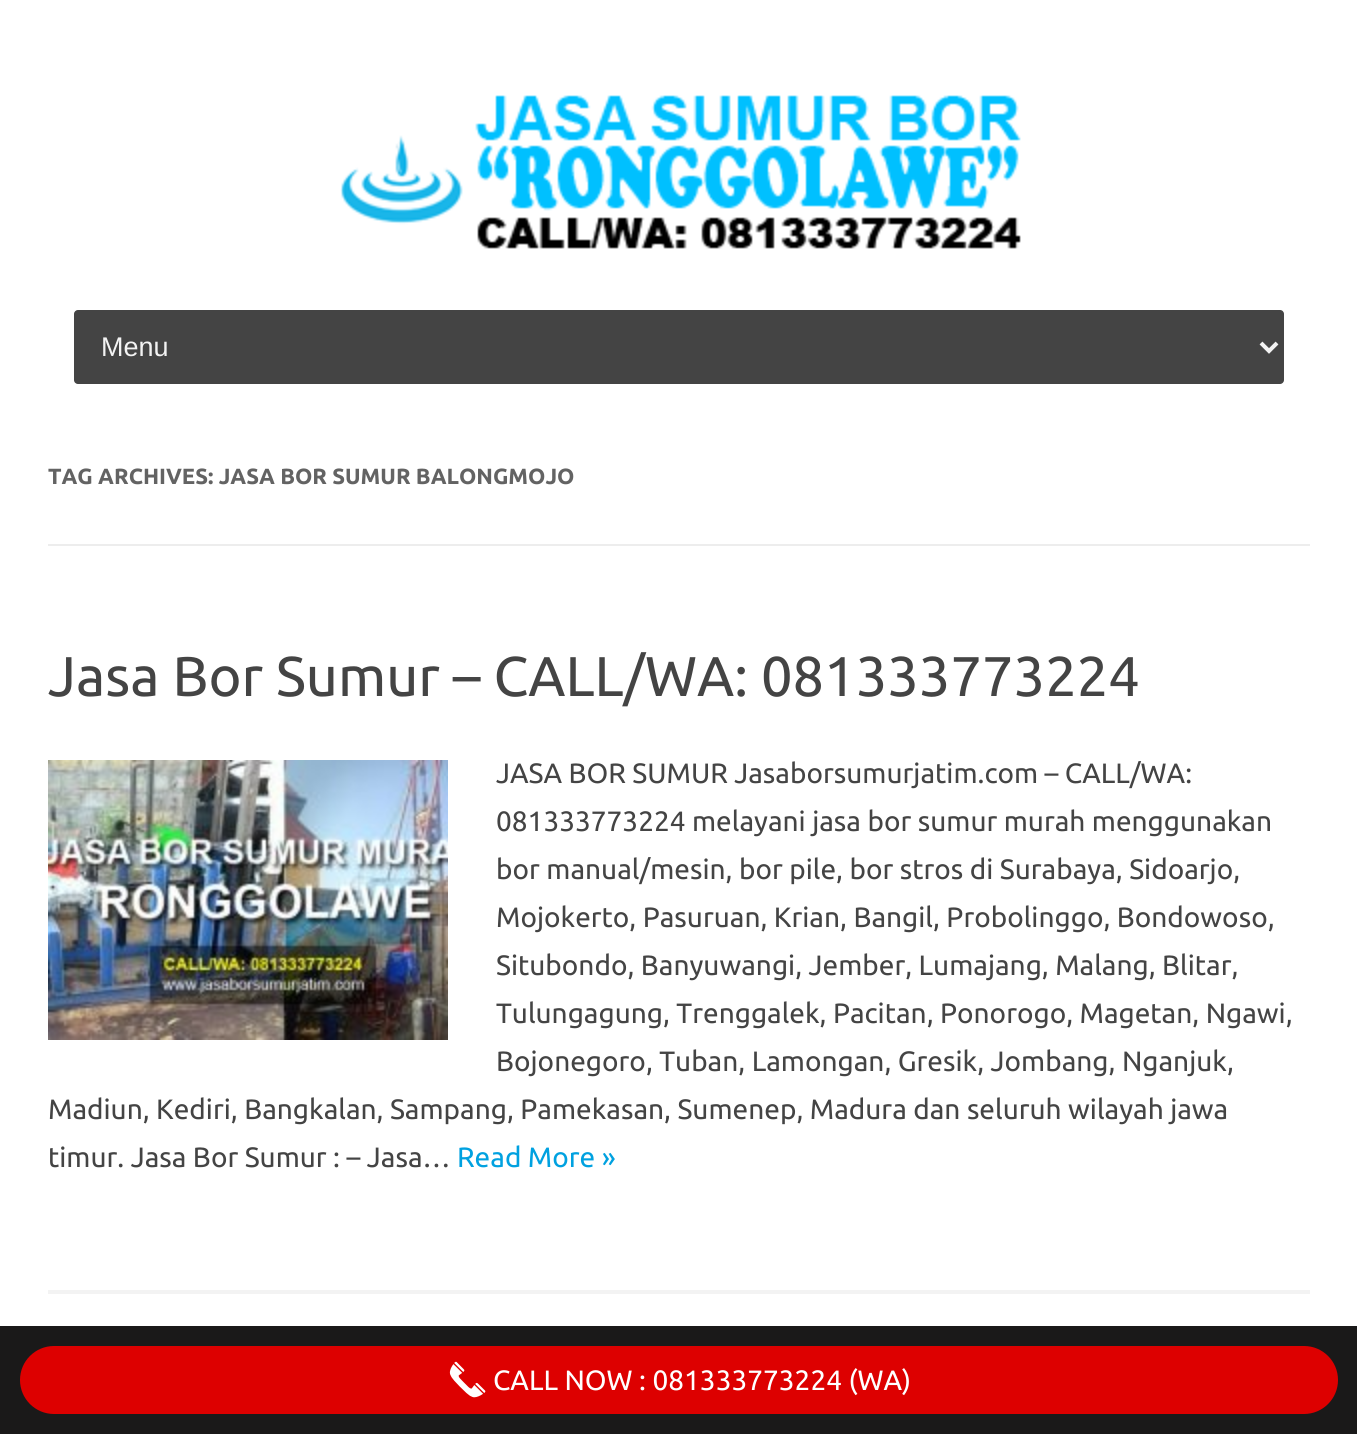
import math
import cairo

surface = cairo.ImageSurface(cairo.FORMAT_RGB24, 1357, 1434)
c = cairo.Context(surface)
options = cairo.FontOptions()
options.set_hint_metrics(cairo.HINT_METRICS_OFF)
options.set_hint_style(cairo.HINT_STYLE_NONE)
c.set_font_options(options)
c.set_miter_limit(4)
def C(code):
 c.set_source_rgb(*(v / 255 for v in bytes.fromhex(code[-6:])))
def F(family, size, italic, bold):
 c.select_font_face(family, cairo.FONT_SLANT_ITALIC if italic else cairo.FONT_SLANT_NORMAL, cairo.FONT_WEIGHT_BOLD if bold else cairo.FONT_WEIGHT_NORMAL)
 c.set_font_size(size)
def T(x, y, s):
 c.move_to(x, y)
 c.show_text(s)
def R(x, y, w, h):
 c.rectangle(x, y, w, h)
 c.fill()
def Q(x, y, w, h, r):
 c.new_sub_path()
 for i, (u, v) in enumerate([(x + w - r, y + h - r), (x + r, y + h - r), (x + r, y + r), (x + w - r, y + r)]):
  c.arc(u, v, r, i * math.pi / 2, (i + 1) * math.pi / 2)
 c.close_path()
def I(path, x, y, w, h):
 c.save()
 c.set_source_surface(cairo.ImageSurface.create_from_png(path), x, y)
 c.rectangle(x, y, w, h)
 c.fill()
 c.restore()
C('ffffff')
c.paint()
I('1.png',340,95,681,154)
C('444444')
Q(74,310,1210,74,4)
c.fill()
c.new_path()
c.move_to(1261,343)
c.line_to(1269,351)
c.line_to(1277,343)
C('f3f3f3')
c.set_line_width(4)
c.stroke()
F('Liberation Sans',27,0,0)
T(101,356,'Menu')
C('ededed')
R(48,544,1262,2)
F('Ubuntu',22,0,1)
C('636363')
T(48,484,'TAG ARCHIVES: JASA BOR SUMUR BALONGMOJO')
C('f3f3f3')
R(48,1290,1262,4)
F('Ubuntu',56,0,0)
C('444444')
T(48,696,'Jasa Bor Sumur – CALL/WA: 081333773224')
I('2.png',48,760,400,280)
F('Ubuntu',28,0,0)
T(496,783,'JASA BOR SUMUR Jasaborsumurjatim.com – CALL/WA:')
T(496,831,'081333773224 melayani jasa bor sumur murah menggunakan')
T(496,879,'bor manual/mesin, bor pile, bor stros di Surabaya, Sidoarjo,')
T(496,927,'Mojokerto, Pasuruan, Krian, Bangil, Probolinggo, Bondowoso,')
T(496,975,'Situbondo, Banyuwangi, Jember, Lumajang, Malang, Blitar,')
T(496,1023,'Tulungagung, Trenggalek, Pacitan, Ponorogo, Magetan, Ngawi,')
T(496,1071,'Bojonegoro, Tuban, Lamongan, Gresik, Jombang, Nganjuk,')
T(48,1119,'Madiun, Kediri, Bangkalan, Sampang, Pamekasan, Sumenep, Madura dan seluruh wilayah jawa')
T(48,1167,'timur. Jasa Bor Sumur : – Jasa…')
C('00a1e0')
T(457,1167,'Read More »')
C('1a1919')
R(0,1326,1357,108)
C('dd0000')
Q(20,1346,1318,68,34)
c.fill()
I('3.png',449,1361,37,37)
C('ffffff')
T(493,1390,'CALL NOW : 081333773224 (WA)')
surface.write_to_png('o.png')
